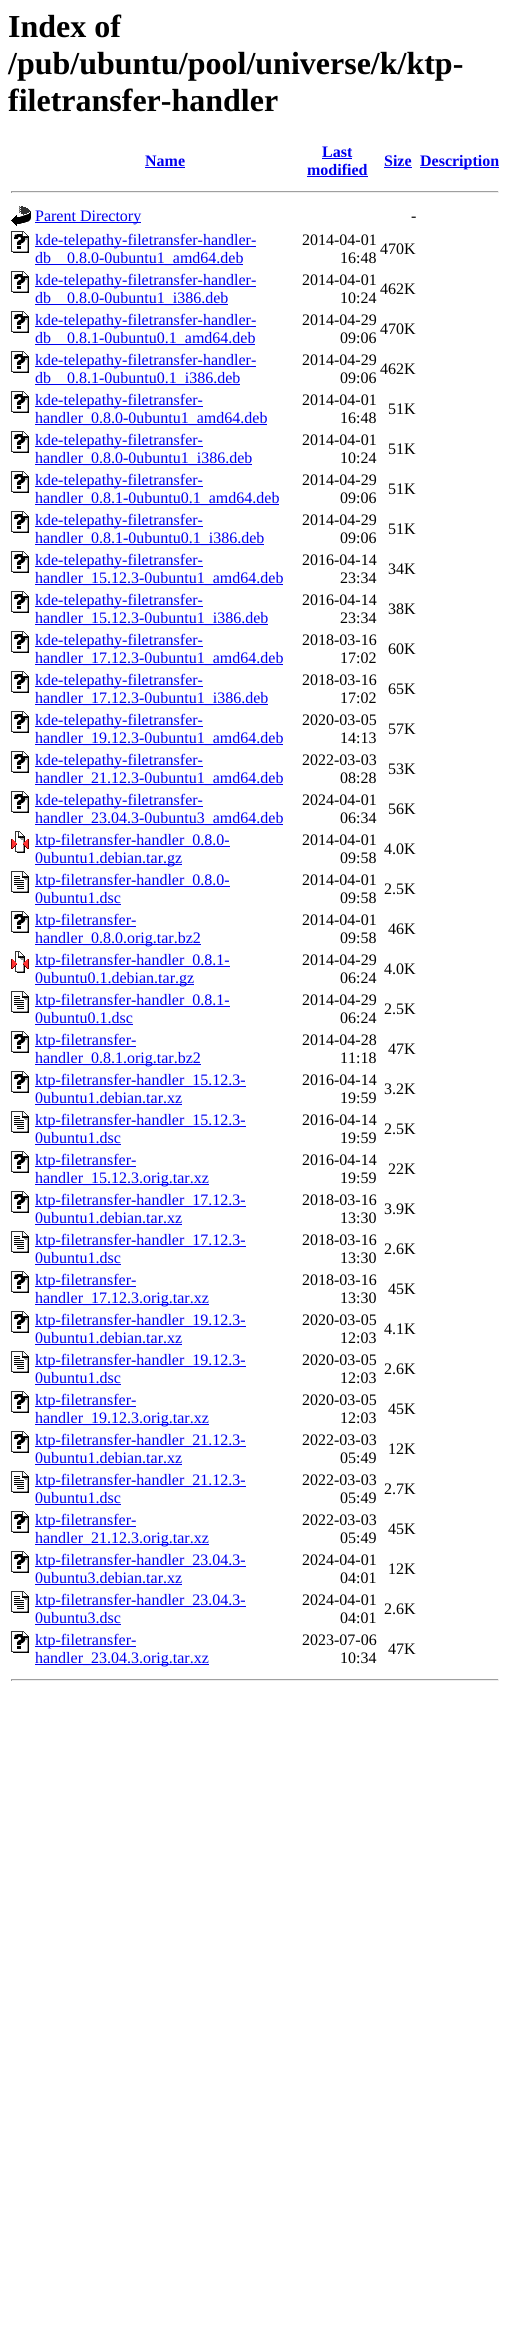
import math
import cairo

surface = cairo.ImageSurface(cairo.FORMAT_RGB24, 510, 2330)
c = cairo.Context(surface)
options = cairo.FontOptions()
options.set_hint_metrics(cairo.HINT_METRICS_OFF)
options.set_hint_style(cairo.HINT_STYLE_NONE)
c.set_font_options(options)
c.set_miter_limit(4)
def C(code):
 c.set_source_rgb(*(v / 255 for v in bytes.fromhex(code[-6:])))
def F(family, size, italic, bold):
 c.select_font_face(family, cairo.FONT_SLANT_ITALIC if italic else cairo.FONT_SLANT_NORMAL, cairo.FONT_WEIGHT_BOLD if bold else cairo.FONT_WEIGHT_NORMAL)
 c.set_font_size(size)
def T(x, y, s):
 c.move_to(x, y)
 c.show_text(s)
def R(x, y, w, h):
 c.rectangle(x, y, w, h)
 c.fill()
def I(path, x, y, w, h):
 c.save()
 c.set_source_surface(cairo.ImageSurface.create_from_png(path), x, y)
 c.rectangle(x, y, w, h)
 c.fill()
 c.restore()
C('ffffff')
c.paint()
F('Liberation Serif',32,0,1)
C('000000')
T(8,37,'Index of')
T(8,74,'/pub/ubuntu/pool/universe/k/ktp-')
T(8,111,'filetransfer-handler')
F('Liberation Serif',16,0,1)
C('0000ee')
T(145,166,'Name')
R(145,167,40,1)
T(322,157,'Last')
R(322,158,30,1)
T(307,175,'modified')
R(307,176,61,1)
T(384,166,'Size')
R(384,167,28,1)
R(420,167,79,1)
T(420,166,'Description')
C('9f9f9f')
R(11,191,488,1)
C('eeeeee')
R(498,191,1,2)
R(11,192,488,1)
C('9f9f9f')
R(11,191,1,2)
I('1.png',11,206,20,20)
C('0000ee')
R(35,222,106,1)
F('Liberation Serif',16,0,0)
T(35,221,'Parent Directory')
C('000000')
T(411,221,'-')
I('2.png',11,231,18,22)
C('0000ee')
R(35,246,221,1)
T(35,245,'kde-telepathy-filetransfer-handler-')
T(35,263,'db')
R(35,264,208,1)
T(67,263,'0.8.0-0ubuntu1_amd64.deb')
C('000000')
T(302,245,'2014-04-01')
T(340,263,'16:48')
T(380,254,'470K')
I('2.png',11,271,18,22)
C('0000ee')
R(35,286,221,1)
T(35,285,'kde-telepathy-filetransfer-handler-')
T(35,303,'db')
R(35,304,193,1)
T(67,303,'0.8.0-0ubuntu1_i386.deb')
C('000000')
T(302,285,'2014-04-01')
T(340,303,'10:24')
T(380,294,'462K')
I('2.png',11,311,18,22)
C('0000ee')
R(35,326,221,1)
T(35,325,'kde-telepathy-filetransfer-handler-')
T(35,343,'db')
R(35,344,220,1)
T(67,343,'0.8.1-0ubuntu0.1_amd64.deb')
C('000000')
T(302,325,'2014-04-29')
T(340,343,'09:06')
T(380,334,'470K')
I('2.png',11,351,18,22)
C('0000ee')
R(35,366,221,1)
T(35,365,'kde-telepathy-filetransfer-handler-')
T(35,383,'db')
R(35,384,205,1)
T(67,383,'0.8.1-0ubuntu0.1_i386.deb')
C('000000')
T(302,365,'2014-04-29')
T(340,383,'09:06')
T(380,374,'462K')
I('2.png',11,391,18,22)
C('0000ee')
R(35,406,168,1)
T(35,405,'kde-telepathy-filetransfer-')
R(35,424,232,1)
T(35,423,'handler_0.8.0-0ubuntu1_amd64.deb')
C('000000')
T(302,405,'2014-04-01')
T(340,423,'16:48')
T(388,414,'51K')
I('2.png',11,431,18,22)
C('0000ee')
R(35,446,168,1)
T(35,445,'kde-telepathy-filetransfer-')
R(35,464,217,1)
T(35,463,'handler_0.8.0-0ubuntu1_i386.deb')
C('000000')
T(302,445,'2014-04-01')
T(340,463,'10:24')
T(388,454,'51K')
I('2.png',11,471,18,22)
C('0000ee')
R(35,486,168,1)
T(35,485,'kde-telepathy-filetransfer-')
R(35,504,244,1)
T(35,503,'handler_0.8.1-0ubuntu0.1_amd64.deb')
C('000000')
T(302,485,'2014-04-29')
T(340,503,'09:06')
T(388,494,'51K')
I('2.png',11,511,18,22)
C('0000ee')
R(35,526,168,1)
T(35,525,'kde-telepathy-filetransfer-')
R(35,544,229,1)
T(35,543,'handler_0.8.1-0ubuntu0.1_i386.deb')
C('000000')
T(302,525,'2014-04-29')
T(340,543,'09:06')
T(388,534,'51K')
I('2.png',11,551,18,22)
C('0000ee')
R(35,566,168,1)
T(35,565,'kde-telepathy-filetransfer-')
R(35,584,248,1)
T(35,583,'handler_15.12.3-0ubuntu1_amd64.deb')
C('000000')
T(302,565,'2016-04-14')
T(340,583,'23:34')
T(388,574,'34K')
I('2.png',11,591,18,22)
C('0000ee')
R(35,606,168,1)
T(35,605,'kde-telepathy-filetransfer-')
R(35,624,233,1)
T(35,623,'handler_15.12.3-0ubuntu1_i386.deb')
C('000000')
T(302,605,'2016-04-14')
T(340,623,'23:34')
T(388,614,'38K')
I('2.png',11,631,18,22)
C('0000ee')
R(35,646,168,1)
T(35,645,'kde-telepathy-filetransfer-')
R(35,664,248,1)
T(35,663,'handler_17.12.3-0ubuntu1_amd64.deb')
C('000000')
T(302,645,'2018-03-16')
T(340,663,'17:02')
T(388,654,'60K')
I('2.png',11,671,18,22)
C('0000ee')
R(35,686,168,1)
T(35,685,'kde-telepathy-filetransfer-')
R(35,704,233,1)
T(35,703,'handler_17.12.3-0ubuntu1_i386.deb')
C('000000')
T(302,685,'2018-03-16')
T(340,703,'17:02')
T(388,694,'65K')
I('2.png',11,711,18,22)
C('0000ee')
R(35,726,168,1)
T(35,725,'kde-telepathy-filetransfer-')
R(35,744,248,1)
T(35,743,'handler_19.12.3-0ubuntu1_amd64.deb')
C('000000')
T(302,725,'2020-03-05')
T(340,743,'14:13')
T(388,734,'57K')
I('2.png',11,751,18,22)
C('0000ee')
R(35,766,168,1)
T(35,765,'kde-telepathy-filetransfer-')
R(35,784,248,1)
T(35,783,'handler_21.12.3-0ubuntu1_amd64.deb')
C('000000')
T(302,765,'2022-03-03')
T(340,783,'08:28')
T(388,774,'53K')
I('2.png',11,791,18,22)
C('0000ee')
R(35,806,168,1)
T(35,805,'kde-telepathy-filetransfer-')
R(35,824,248,1)
T(35,823,'handler_23.04.3-0ubuntu3_amd64.deb')
C('000000')
T(302,805,'2024-04-01')
T(340,823,'06:34')
T(388,814,'56K')
I('3.png',11,831,18,22)
C('0000ee')
R(35,846,195,1)
T(35,845,'ktp-filetransfer-handler_0.8.0-')
R(35,864,147,1)
T(35,863,'0ubuntu1.debian.tar.gz')
C('000000')
T(302,845,'2014-04-01')
T(340,863,'09:58')
T(384,854,'4.0K')
I('4.png',11,871,18,22)
C('0000ee')
R(35,886,195,1)
T(35,885,'ktp-filetransfer-handler_0.8.0-')
T(35,903,'0ubuntu1.dsc')
R(35,904,86,1)
C('000000')
T(302,885,'2014-04-01')
T(340,903,'09:58')
T(384,894,'2.5K')
I('2.png',11,911,18,22)
C('0000ee')
R(35,926,101,1)
T(35,925,'ktp-filetransfer-')
R(35,944,166,1)
T(35,943,'handler_0.8.0.orig.tar.bz2')
C('000000')
T(302,925,'2014-04-01')
T(340,943,'09:58')
T(388,934,'46K')
I('3.png',11,951,18,22)
C('0000ee')
R(35,966,195,1)
T(35,965,'ktp-filetransfer-handler_0.8.1-')
R(35,984,159,1)
T(35,983,'0ubuntu0.1.debian.tar.gz')
C('000000')
T(302,965,'2014-04-29')
T(340,983,'06:24')
T(384,974,'4.0K')
I('4.png',11,991,18,22)
C('0000ee')
R(35,1006,195,1)
T(35,1005,'ktp-filetransfer-handler_0.8.1-')
T(35,1023,'0ubuntu0.1.dsc')
R(35,1024,98,1)
C('000000')
T(302,1005,'2014-04-29')
T(340,1023,'06:24')
T(384,1014,'2.5K')
I('2.png',11,1031,18,22)
C('0000ee')
R(35,1046,101,1)
T(35,1045,'ktp-filetransfer-')
R(35,1064,166,1)
T(35,1063,'handler_0.8.1.orig.tar.bz2')
C('000000')
T(302,1045,'2014-04-28')
T(340,1063,'11:18')
T(388,1054,'47K')
I('2.png',11,1071,18,22)
C('0000ee')
R(35,1086,211,1)
T(35,1085,'ktp-filetransfer-handler_15.12.3-')
T(35,1103,'0ubuntu1.debian.tar.xz')
R(35,1104,147,1)
C('000000')
T(302,1085,'2016-04-14')
T(340,1103,'19:59')
T(384,1094,'3.2K')
I('4.png',11,1111,18,22)
C('0000ee')
R(35,1126,211,1)
T(35,1125,'ktp-filetransfer-handler_15.12.3-')
T(35,1143,'0ubuntu1.dsc')
R(35,1144,86,1)
C('000000')
T(302,1125,'2016-04-14')
T(340,1143,'19:59')
T(384,1134,'2.5K')
I('2.png',11,1151,18,22)
C('0000ee')
R(35,1166,101,1)
T(35,1165,'ktp-filetransfer-')
R(35,1184,174,1)
T(35,1183,'handler_15.12.3.orig.tar.xz')
C('000000')
T(302,1165,'2016-04-14')
T(340,1183,'19:59')
T(388,1174,'22K')
I('2.png',11,1191,18,22)
C('0000ee')
R(35,1206,211,1)
T(35,1205,'ktp-filetransfer-handler_17.12.3-')
T(35,1223,'0ubuntu1.debian.tar.xz')
R(35,1224,147,1)
C('000000')
T(302,1205,'2018-03-16')
T(340,1223,'13:30')
T(384,1214,'3.9K')
I('4.png',11,1231,18,22)
C('0000ee')
R(35,1246,211,1)
T(35,1245,'ktp-filetransfer-handler_17.12.3-')
T(35,1263,'0ubuntu1.dsc')
R(35,1264,86,1)
C('000000')
T(302,1245,'2018-03-16')
T(340,1263,'13:30')
T(384,1254,'2.6K')
I('2.png',11,1271,18,22)
C('0000ee')
R(35,1286,101,1)
T(35,1285,'ktp-filetransfer-')
R(35,1304,174,1)
T(35,1303,'handler_17.12.3.orig.tar.xz')
C('000000')
T(302,1285,'2018-03-16')
T(340,1303,'13:30')
T(388,1294,'45K')
I('2.png',11,1311,18,22)
C('0000ee')
R(35,1326,211,1)
T(35,1325,'ktp-filetransfer-handler_19.12.3-')
T(35,1343,'0ubuntu1.debian.tar.xz')
R(35,1344,147,1)
C('000000')
T(302,1325,'2020-03-05')
T(340,1343,'12:03')
T(384,1334,'4.1K')
I('4.png',11,1351,18,22)
C('0000ee')
R(35,1366,211,1)
T(35,1365,'ktp-filetransfer-handler_19.12.3-')
T(35,1383,'0ubuntu1.dsc')
R(35,1384,86,1)
C('000000')
T(302,1365,'2020-03-05')
T(340,1383,'12:03')
T(384,1374,'2.6K')
I('2.png',11,1391,18,22)
C('0000ee')
R(35,1406,101,1)
T(35,1405,'ktp-filetransfer-')
R(35,1424,174,1)
T(35,1423,'handler_19.12.3.orig.tar.xz')
C('000000')
T(302,1405,'2020-03-05')
T(340,1423,'12:03')
T(388,1414,'45K')
I('2.png',11,1431,18,22)
C('0000ee')
R(35,1446,211,1)
T(35,1445,'ktp-filetransfer-handler_21.12.3-')
T(35,1463,'0ubuntu1.debian.tar.xz')
R(35,1464,147,1)
C('000000')
T(302,1445,'2022-03-03')
T(340,1463,'05:49')
T(388,1454,'12K')
I('4.png',11,1471,18,22)
C('0000ee')
R(35,1486,211,1)
T(35,1485,'ktp-filetransfer-handler_21.12.3-')
T(35,1503,'0ubuntu1.dsc')
R(35,1504,86,1)
C('000000')
T(302,1485,'2022-03-03')
T(340,1503,'05:49')
T(384,1494,'2.7K')
I('2.png',11,1511,18,22)
C('0000ee')
R(35,1526,101,1)
T(35,1525,'ktp-filetransfer-')
R(35,1544,174,1)
T(35,1543,'handler_21.12.3.orig.tar.xz')
C('000000')
T(302,1525,'2022-03-03')
T(340,1543,'05:49')
T(388,1534,'45K')
I('2.png',11,1551,18,22)
C('0000ee')
R(35,1566,211,1)
T(35,1565,'ktp-filetransfer-handler_23.04.3-')
T(35,1583,'0ubuntu3.debian.tar.xz')
R(35,1584,147,1)
C('000000')
T(302,1565,'2024-04-01')
T(340,1583,'04:01')
T(388,1574,'12K')
I('4.png',11,1591,18,22)
C('0000ee')
R(35,1606,211,1)
T(35,1605,'ktp-filetransfer-handler_23.04.3-')
T(35,1623,'0ubuntu3.dsc')
R(35,1624,86,1)
C('000000')
T(302,1605,'2024-04-01')
T(340,1623,'04:01')
T(384,1614,'2.6K')
I('2.png',11,1631,18,22)
C('0000ee')
R(35,1646,101,1)
T(35,1645,'ktp-filetransfer-')
R(35,1664,174,1)
T(35,1663,'handler_23.04.3.orig.tar.xz')
C('000000')
T(302,1645,'2023-07-06')
T(340,1663,'10:34')
T(388,1654,'47K')
C('9f9f9f')
R(11,1679,488,1)
C('eeeeee')
R(498,1679,1,2)
R(11,1680,488,1)
C('9f9f9f')
R(11,1679,1,2)
surface.write_to_png('o.png')
